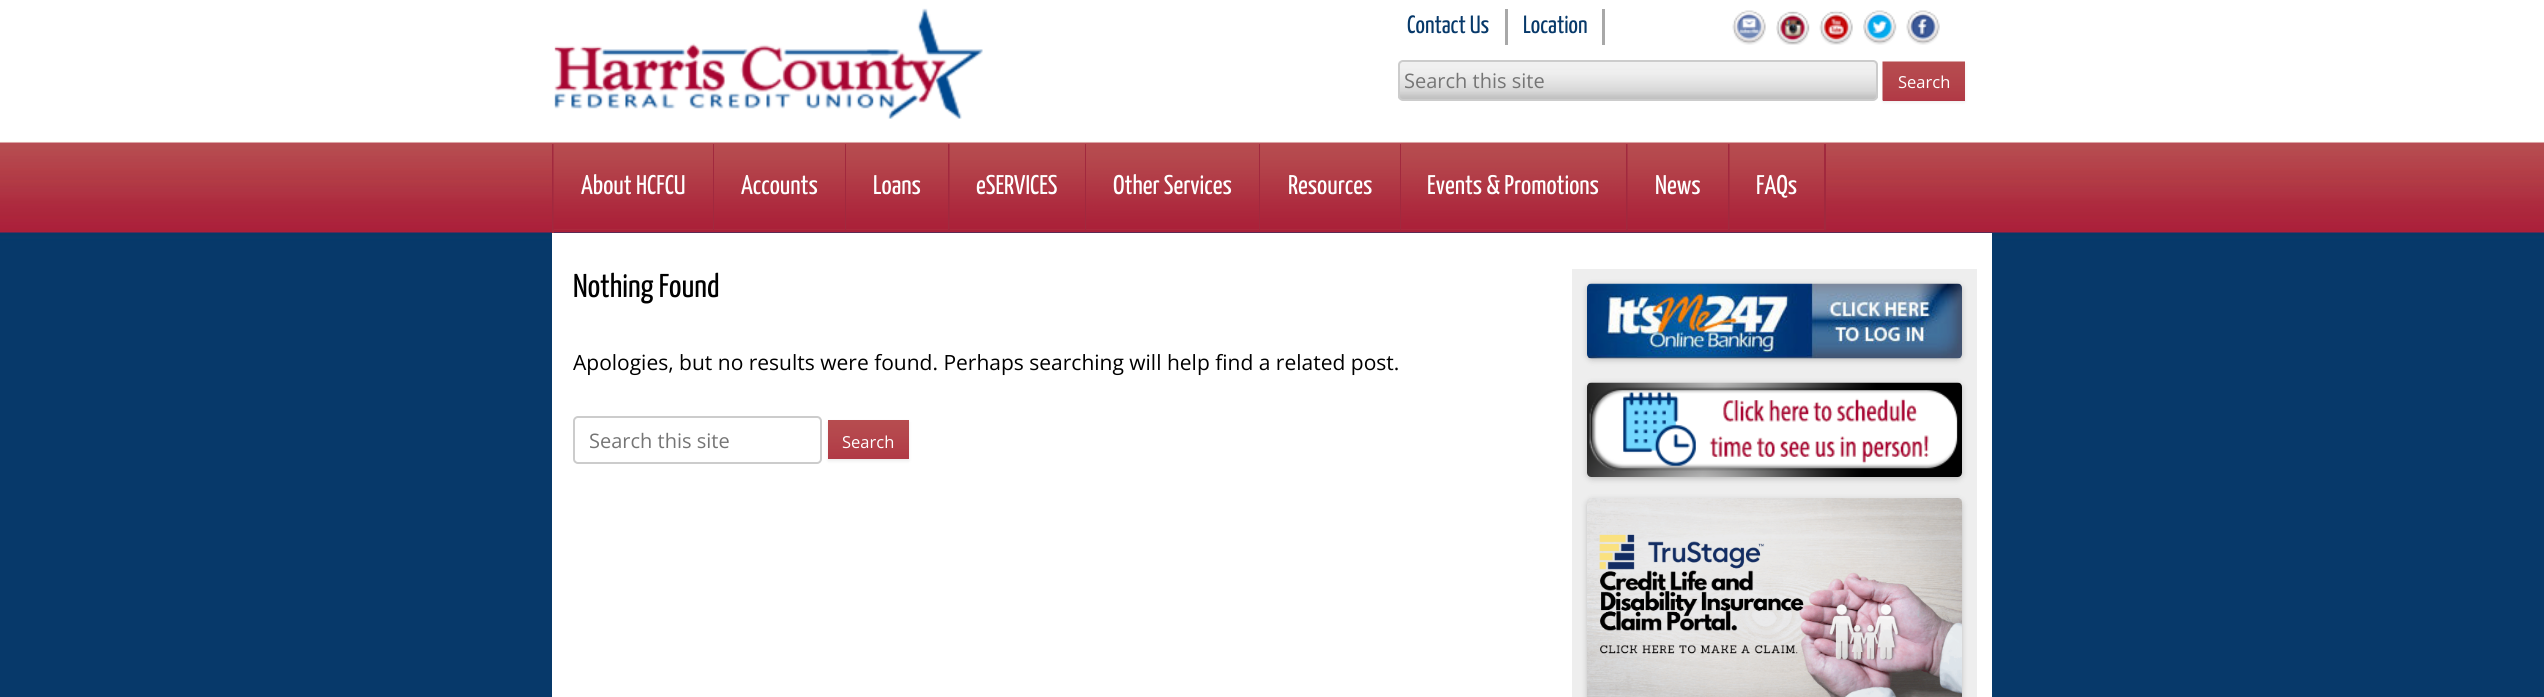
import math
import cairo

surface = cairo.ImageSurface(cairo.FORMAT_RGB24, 2544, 697)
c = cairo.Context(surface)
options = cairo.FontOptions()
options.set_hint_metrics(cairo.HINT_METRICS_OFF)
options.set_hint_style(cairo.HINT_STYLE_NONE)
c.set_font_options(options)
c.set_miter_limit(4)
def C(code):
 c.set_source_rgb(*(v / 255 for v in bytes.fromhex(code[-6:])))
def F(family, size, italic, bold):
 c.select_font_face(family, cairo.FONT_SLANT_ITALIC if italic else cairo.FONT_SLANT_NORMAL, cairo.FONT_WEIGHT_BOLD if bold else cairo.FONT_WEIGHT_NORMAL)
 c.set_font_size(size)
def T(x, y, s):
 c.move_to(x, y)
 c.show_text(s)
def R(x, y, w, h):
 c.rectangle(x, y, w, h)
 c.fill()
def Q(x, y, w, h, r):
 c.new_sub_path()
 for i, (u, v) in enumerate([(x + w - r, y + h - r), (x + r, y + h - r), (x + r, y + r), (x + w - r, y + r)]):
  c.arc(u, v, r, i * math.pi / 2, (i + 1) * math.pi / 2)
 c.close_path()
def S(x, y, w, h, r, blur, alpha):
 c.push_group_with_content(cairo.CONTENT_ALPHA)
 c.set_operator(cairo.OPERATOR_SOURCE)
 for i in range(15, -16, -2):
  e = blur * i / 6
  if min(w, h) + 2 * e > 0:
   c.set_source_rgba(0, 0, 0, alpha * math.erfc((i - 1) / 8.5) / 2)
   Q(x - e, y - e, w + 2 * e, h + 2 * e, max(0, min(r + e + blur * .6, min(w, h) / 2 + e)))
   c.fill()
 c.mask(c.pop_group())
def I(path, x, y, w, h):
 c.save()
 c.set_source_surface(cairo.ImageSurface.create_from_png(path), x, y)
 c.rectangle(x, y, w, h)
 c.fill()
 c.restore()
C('ffffff')
c.paint()
I('1.png',0,141,2544,556)
I('2.png',554,8,429,111)
C('a8a8a8')
R(1505,9,3,36)
F('Yanone Kaffeesatz ExtraLight',25,0,0)
C('07396a')
T(1407,33,'Contact Us')
C('a8a8a8')
R(1602,9,3,36)
C('07396a')
T(1523,33,'Location')
I('3.png',1732,10,34,35)
I('4.png',1776,11,34,34)
I('5.png',1819,10,34,35)
I('6.png',1863,10,34,35)
I('7.png',1906,10,34,35)
I('8.png',1398,61,480,38)
Q(1399,61,478,39,4)
C('cccccc')
c.stroke()
F('Open Sans',20,0,0)
C('757575')
T(1404,88,'Search this site')
C('404040')
S(1883,63,82,39,0,1.5,.1)
C('af3242')
R(1883,100,82,1)
I('9.png',1882,61,83,40)
F('Open Sans',16.5,0,0)
C('ffffff')
T(1898,88,'Search')
C('a1293e')
R(552,144,2,89)
C('af3242')
R(554,229,159,1)
I('10.png',553,144,160,86)
C('a1293e')
R(713,144,1,86)
F('Yanone Kaffeesatz ExtraLight',27,0,0)
C('ffffff')
T(581,194,'About HCFCU')
C('af3242')
R(714,229,131,1)
I('11.png',714,144,131,86)
C('a1293e')
R(845,144,1,86)
C('ffffff')
T(741,194,'Accounts')
C('af3242')
R(846,229,102,1)
I('12.png',846,144,102,86)
C('a1293e')
R(948,144,2,86)
C('ffffff')
T(873,194,'Loans')
C('af3242')
R(950,229,135,1)
I('13.png',949,144,136,86)
C('a1293e')
R(1085,144,1,86)
C('ffffff')
T(976,194,'eSERVICES')
C('af3242')
R(1086,229,173,1)
I('14.png',1086,144,173,86)
C('a1293e')
R(1259,144,1,86)
C('ffffff')
T(1113,194,'Other Services')
C('af3242')
R(1260,229,140,1)
I('15.png',1260,144,140,86)
C('a1293e')
R(1400,144,1,86)
C('ffffff')
T(1288,194,'Resources')
C('af3242')
R(1401,229,225,1)
I('16.png',1401,144,225,86)
C('a1293e')
R(1626,144,2,86)
C('ffffff')
T(1427,194,'Events & Promotions')
C('af3242')
R(1628,229,100,1)
I('17.png',1627,144,101,86)
C('a1293e')
R(1728,144,2,86)
C('ffffff')
T(1655,194,'News')
C('af3242')
R(1730,229,94,1)
I('18.png',1729,144,95,86)
C('a1293e')
R(1824,144,2,86)
C('ffffff')
T(1756,194,'FAQs')
R(552,233,1440,464)
F('Yanone Kaffeesatz ExtraLight',33,0,0)
C('000000')
T(573,297,'Nothing Found')
F('Open Sans',21,0,0)
T(573,370,'Apologies, but no results were found. Perhaps searching will help find a related post.')
Q(574,417,247,46,4)
C('cccccc')
c.stroke()
F('Open Sans',20,0,0)
C('757575')
T(589,448,'Search this site')
C('404040')
S(828,422,81,39,0,1.5,.1)
I('19.png',828,420,81,39)
F('Open Sans',16.5,0,0)
C('ffffff')
T(842,448,'Search')
C('eeeeee')
R(1572,269,405,428)
C('000000')
S(1587,285,375,75,5,3,.2)
I('20.png',1587,283,375,76)
S(1587,384,375,95,5,3,.2)
I('21.png',1587,382,375,95)
S(1587,500,375,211,5,3,.2)
I('22.png',1587,498,375,199)
surface.write_to_png('o.png')
